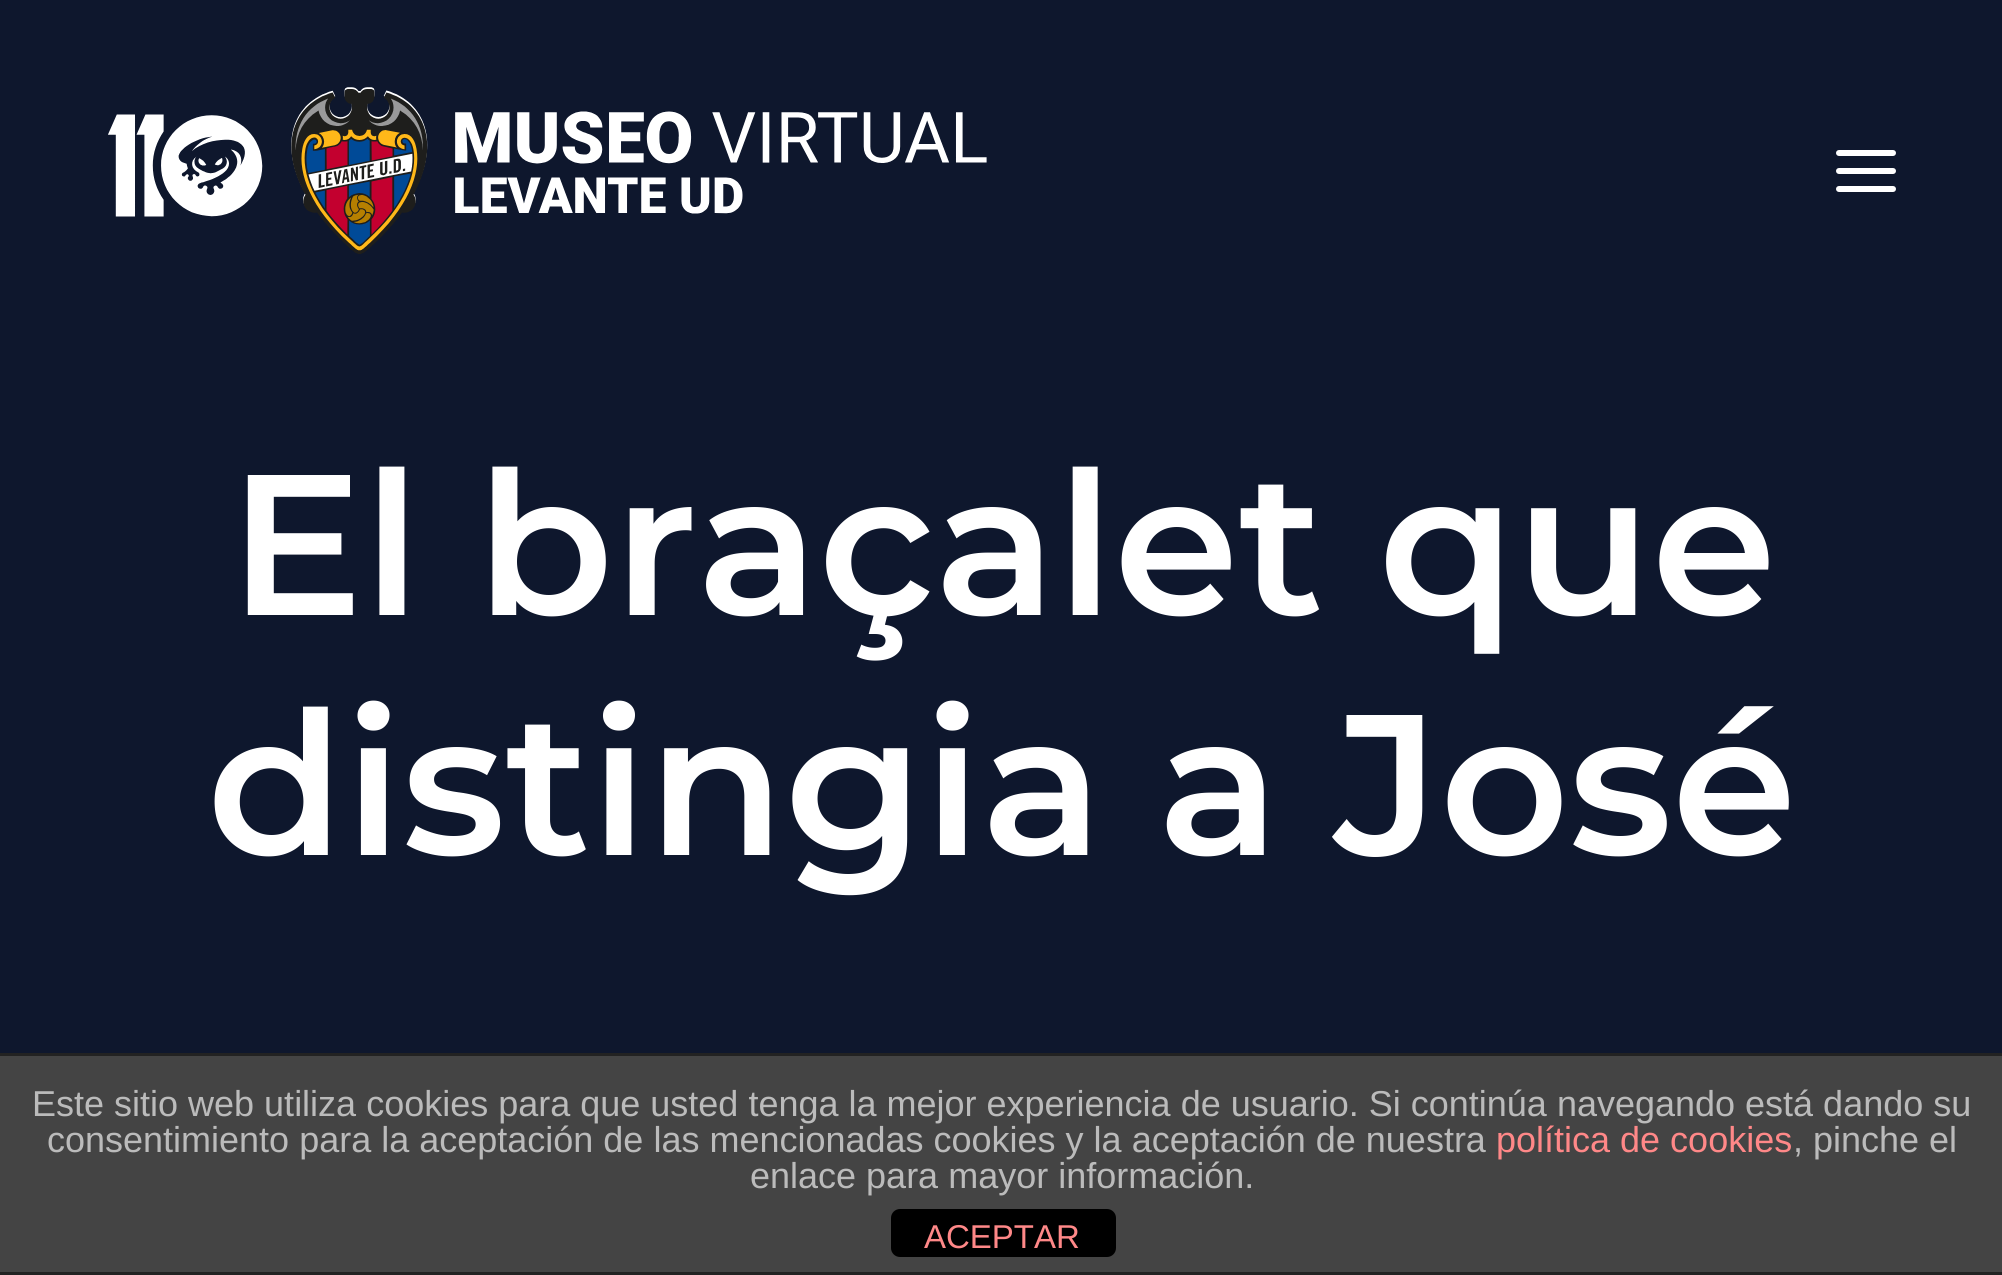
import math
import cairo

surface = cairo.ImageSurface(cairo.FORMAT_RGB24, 2002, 1275)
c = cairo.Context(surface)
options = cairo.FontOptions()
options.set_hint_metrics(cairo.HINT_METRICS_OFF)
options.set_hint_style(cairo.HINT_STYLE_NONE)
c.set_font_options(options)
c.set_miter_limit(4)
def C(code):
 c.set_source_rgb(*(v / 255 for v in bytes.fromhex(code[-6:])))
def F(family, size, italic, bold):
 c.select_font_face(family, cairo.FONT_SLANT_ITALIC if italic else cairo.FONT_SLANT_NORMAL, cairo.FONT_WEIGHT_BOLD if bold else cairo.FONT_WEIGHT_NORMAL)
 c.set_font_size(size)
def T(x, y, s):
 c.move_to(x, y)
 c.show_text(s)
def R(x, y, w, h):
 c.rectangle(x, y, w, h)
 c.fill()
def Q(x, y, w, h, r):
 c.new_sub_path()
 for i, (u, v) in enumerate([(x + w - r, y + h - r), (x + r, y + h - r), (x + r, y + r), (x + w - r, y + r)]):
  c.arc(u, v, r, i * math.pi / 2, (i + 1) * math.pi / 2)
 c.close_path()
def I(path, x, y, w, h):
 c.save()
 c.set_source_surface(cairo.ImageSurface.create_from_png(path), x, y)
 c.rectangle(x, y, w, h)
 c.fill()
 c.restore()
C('0e172d')
c.paint()
I('1.png',108,87,879,167)
C('ffffff')
Q(1836,168,60,6,3)
c.fill()
Q(1836,150,60,6,3)
c.fill()
Q(1836,186,60,6,3)
c.fill()
F('Montserrat SemiBold',200,0,0)
T(229,615,'El braçalet que')
T(207,855,'distingia a José')
C('444444')
R(0,1056,2002,216)
C('222222')
R(0,1053,2002,3)
R(0,1272,2002,3)
F('Liberation Sans',36,0,0)
C('bbbbbb')
T(32,1116,'Este sitio web utiliza cookies para que usted tenga la mejor experiencia de usuario. Si continúa navegando está dando su')
T(47,1152,'consentimiento para la aceptación de las mencionadas cookies y la aceptación de nuestra')
C('ff8888')
T(1496,1152,'política de cookies')
C('bbbbbb')
T(1793,1152,', pinche el')
T(750,1188,'enlace para mayor información.')
C('000000')
Q(891,1209,225,48,9)
c.fill()
F('Liberation Sans',33,0,0)
C('ff8888')
T(924,1248,'ACEPTAR')
surface.write_to_png('o.png')
